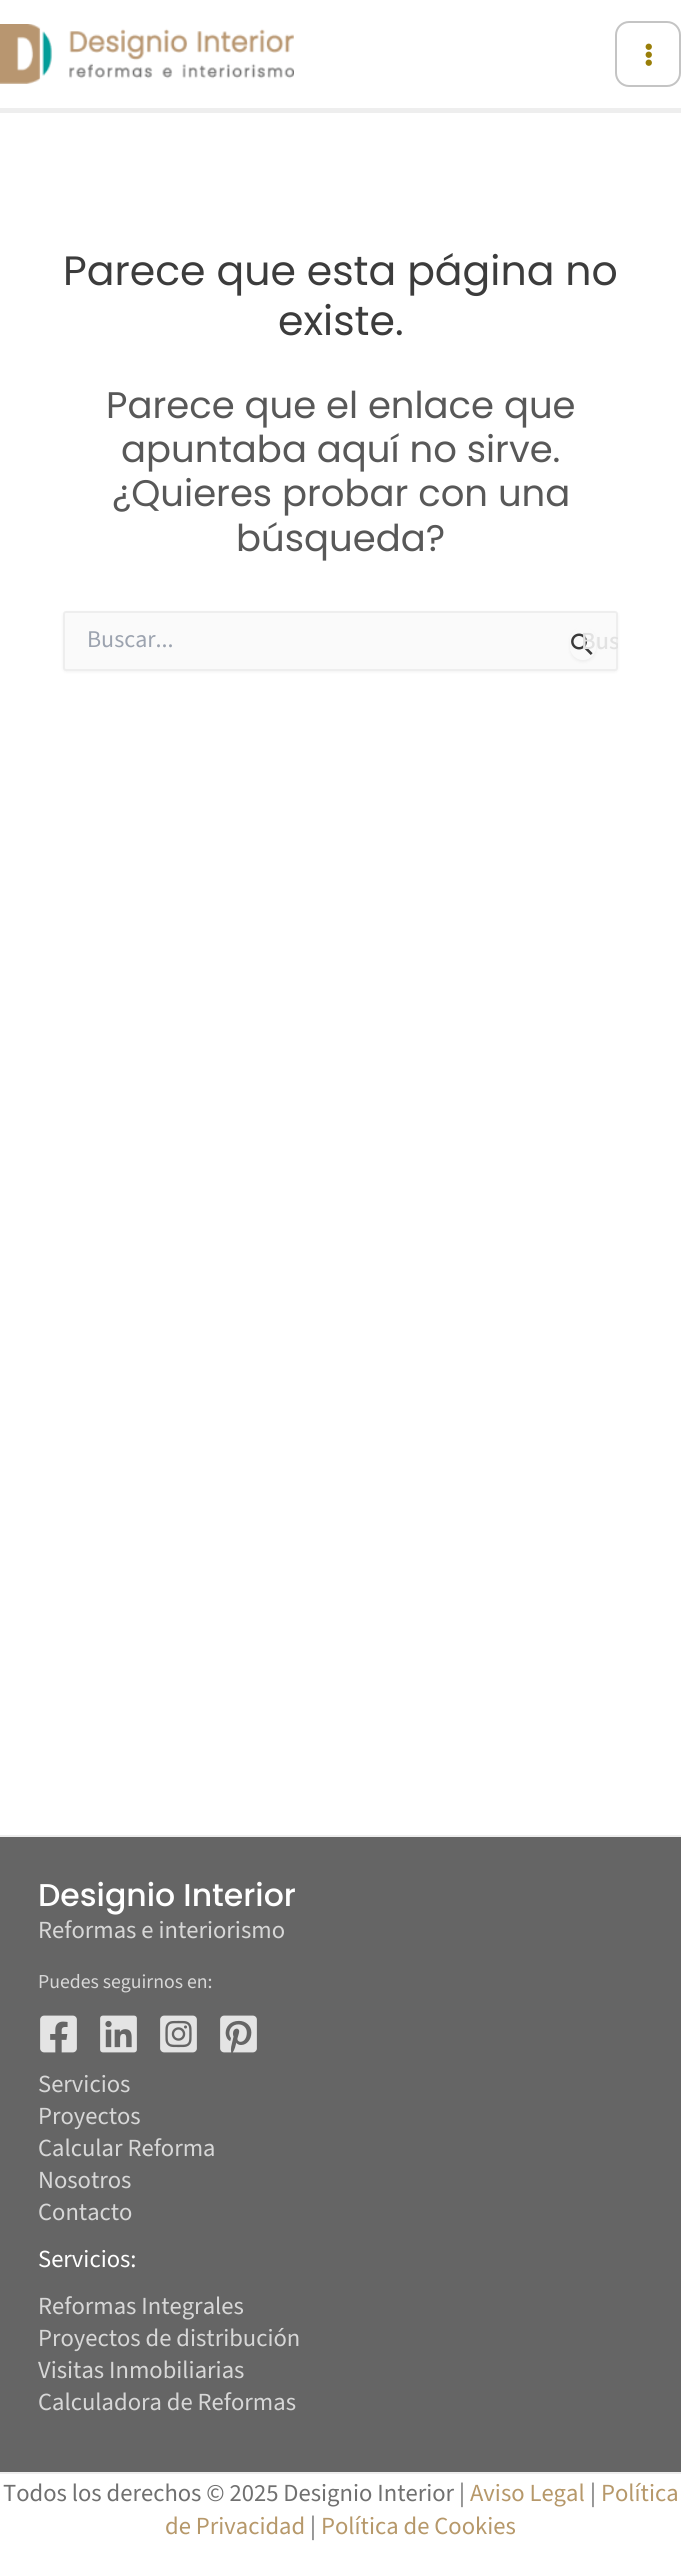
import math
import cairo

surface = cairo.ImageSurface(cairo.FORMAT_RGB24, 681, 2563)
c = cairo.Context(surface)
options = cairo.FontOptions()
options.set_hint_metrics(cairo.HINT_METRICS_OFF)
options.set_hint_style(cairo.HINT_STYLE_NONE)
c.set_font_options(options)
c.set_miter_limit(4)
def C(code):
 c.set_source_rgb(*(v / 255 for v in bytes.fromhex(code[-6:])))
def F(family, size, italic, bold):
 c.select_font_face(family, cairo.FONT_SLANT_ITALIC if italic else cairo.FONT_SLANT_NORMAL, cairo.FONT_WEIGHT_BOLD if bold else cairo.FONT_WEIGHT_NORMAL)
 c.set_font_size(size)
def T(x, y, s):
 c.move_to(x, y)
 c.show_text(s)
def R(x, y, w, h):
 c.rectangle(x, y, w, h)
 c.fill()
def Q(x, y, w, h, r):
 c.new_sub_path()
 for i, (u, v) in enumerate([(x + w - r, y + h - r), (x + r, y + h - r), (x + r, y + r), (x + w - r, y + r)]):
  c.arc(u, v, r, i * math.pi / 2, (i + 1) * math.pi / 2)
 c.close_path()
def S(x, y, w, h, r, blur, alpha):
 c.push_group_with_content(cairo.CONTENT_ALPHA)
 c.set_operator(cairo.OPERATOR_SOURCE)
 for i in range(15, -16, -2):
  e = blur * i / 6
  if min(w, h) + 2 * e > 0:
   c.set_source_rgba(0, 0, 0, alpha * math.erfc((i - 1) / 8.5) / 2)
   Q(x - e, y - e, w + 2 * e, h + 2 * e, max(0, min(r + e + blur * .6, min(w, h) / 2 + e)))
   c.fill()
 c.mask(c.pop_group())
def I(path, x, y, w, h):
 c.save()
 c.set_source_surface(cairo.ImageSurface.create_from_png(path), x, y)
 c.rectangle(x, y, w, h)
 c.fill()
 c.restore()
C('ffffff')
c.paint()
C('eeeeee')
R(0,108,681,5)
I('1.png',0,24,294,60)
Q(616,22,64,64,13)
C('c4c4c4')
c.stroke()
I('2.png',645,43,7,23)
F('Poppins',41,0,0)
C('3c3c3c')
T(63,285,'Parece que esta página no')
T(278,335,'existe.')
F('Poppins',37,0,0)
C('585858')
T(106,418,'Parece que el enlace que')
T(121,462,'apuntaba aquí no sirve.')
T(112,506,'¿Quieres probar con una')
T(236,551,'búsqueda?')
C('000000')
S(63,612,555,60,3,1.5,.05)
C('fafafa')
Q(64,612,553,58,2)
c.fill_preserve()
C('eeeeee')
c.stroke()
F('Source Sans 3',24,0,0)
C('9ca3af')
T(87,647,'Buscar...')
c.save()
c.set_fill_rule(cairo.FILL_RULE_EVEN_ODD)
c.new_path()
c.move_to(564,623)
c.line_to(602,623)
c.line_to(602,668)
c.line_to(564,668)
c.close_path()
c.move_to(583,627)
c.curve_to(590,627,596,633,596,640)
c.line_to(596,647)
c.curve_to(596,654,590,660,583,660)
c.curve_to(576,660,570,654,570,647)
c.line_to(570,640)
c.curve_to(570,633,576,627,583,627)
c.close_path()
c.clip()
C('000000')
S(570,629,26,33,13,1.5,.05)
c.restore()
I('3.png',571,633,22,22)
c.save()
Q(551,611,67,63,3)
c.clip()
F('Source Sans 3 Medium',24.6,0,0)
C('e2e2e2')
T(581,649,'Bus')
c.restore()
C('656565')
R(0,1837,681,635)
C('eeeeee')
R(0,1835,681,2)
F('Poppins Medium',31.5,0,0)
C('ffffff')
T(38,1906,'Designio Interior')
F('Source Sans 3',24.6,0,0)
C('d7d7d7')
T(38,1938,'Reformas e interiorismo')
F('Source Sans 3',19.75,0,0)
T(38,1988,'Puedes seguirnos en:')
I('4.png',40,2015,37,38)
I('5.png',100,2015,37,38)
I('6.png',160,2015,37,38)
I('7.png',220,2015,37,38)
F('Source Sans 3',24.6,0,0)
T(38,2092,'Servicios')
T(38,2124,'Proyectos')
T(38,2156,'Calcular Reforma')
T(38,2188,'Nosotros')
T(38,2220,'Contacto')
C('ffffff')
T(38,2267,'Servicios:')
C('d7d7d7')
T(38,2314,'Reformas Integrales')
T(38,2346,'Proyectos de distribución')
T(38,2378,'Visitas Inmobiliarias')
T(38,2410,'Calculadora de Reformas')
C('eeeeee')
R(0,2472,681,2)
C('707070')
T(3,2501,'Todos los derechos © 2025 Designio Interior |')
C('b6986a')
T(470,2501,'Aviso Legal')
C('707070')
T(590,2501,'|')
C('b6986a')
T(601,2501,'Política')
T(165,2534,'de Privacidad')
C('707070')
T(310,2534,'|')
C('b6986a')
T(321,2534,'Política de Cookies')
surface.write_to_png('o.png')
